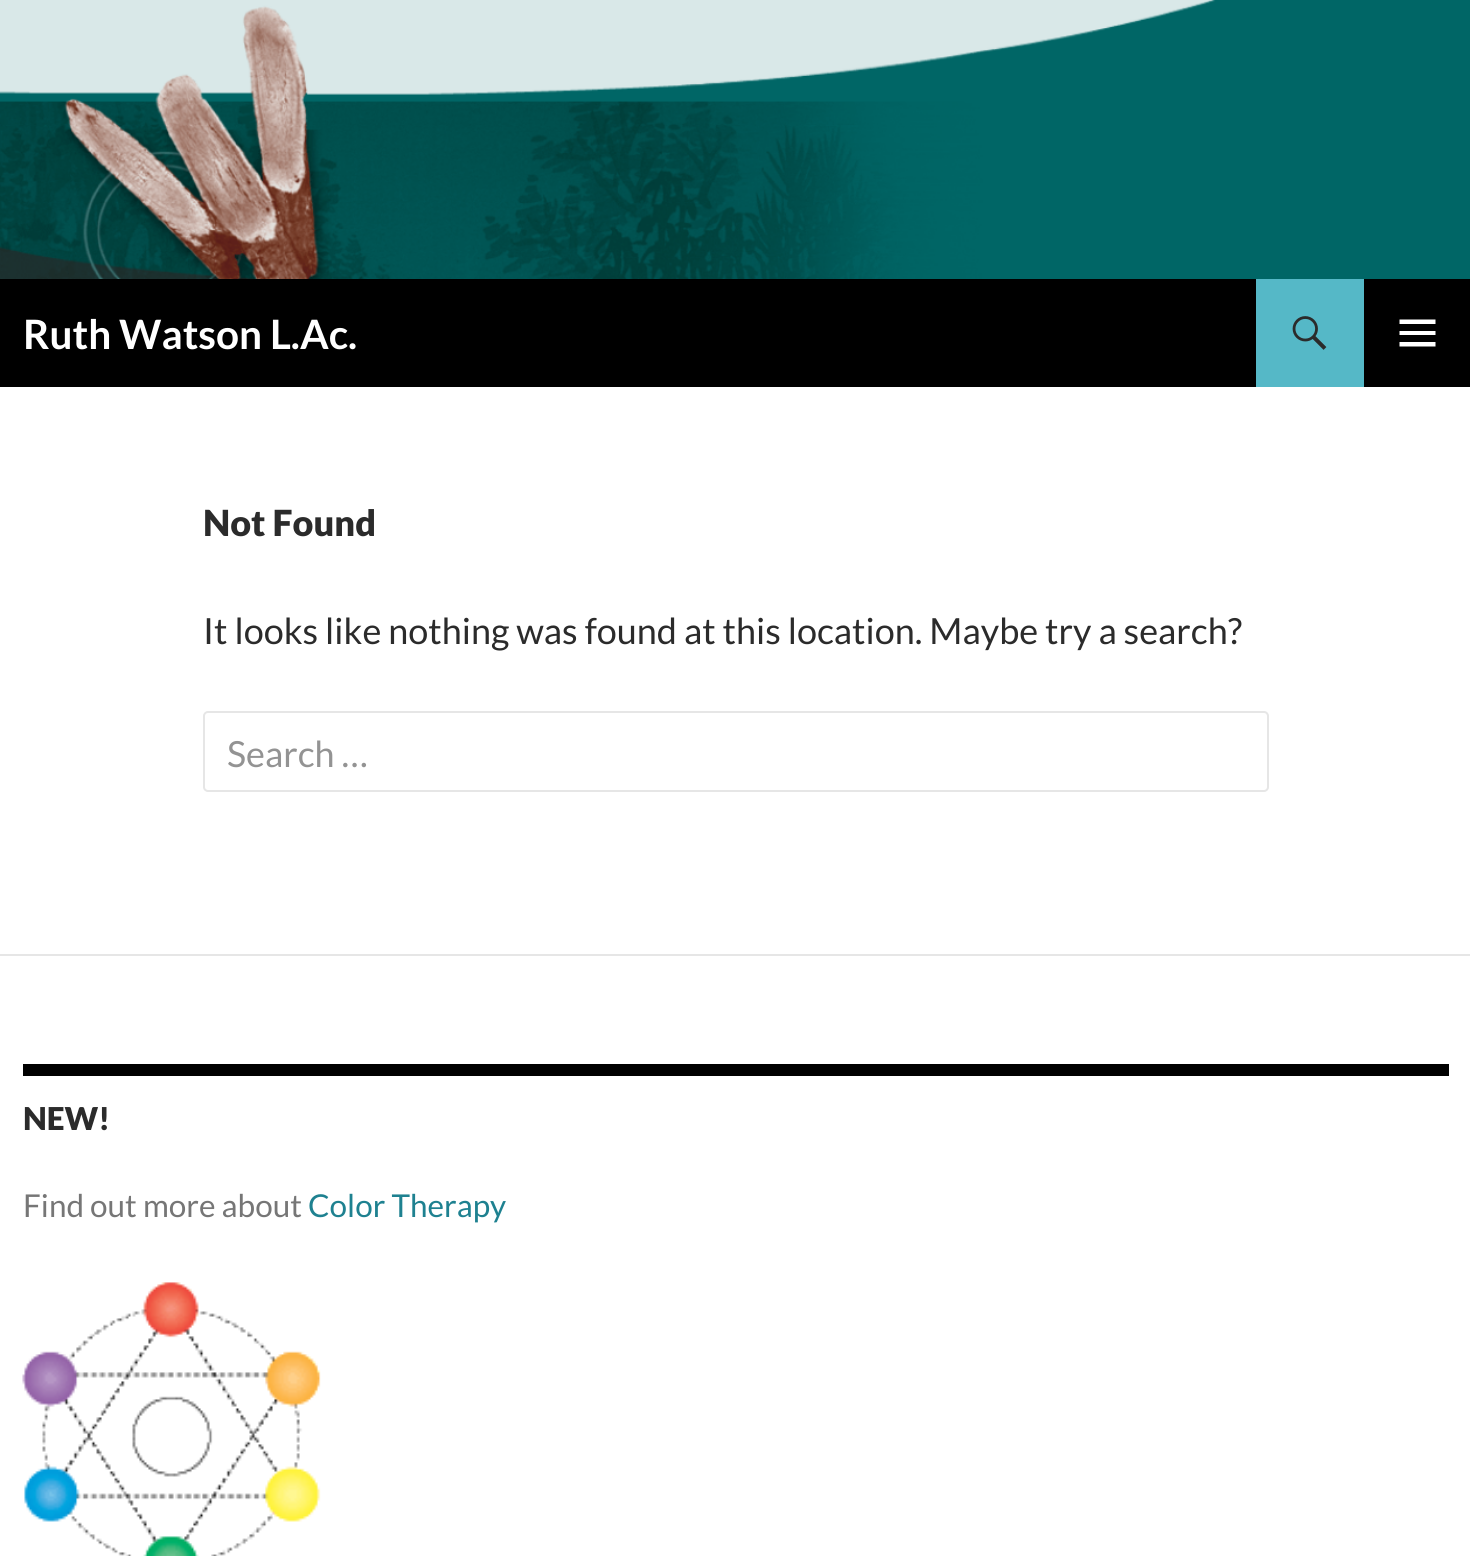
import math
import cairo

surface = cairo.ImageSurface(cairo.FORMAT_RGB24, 1470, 1556)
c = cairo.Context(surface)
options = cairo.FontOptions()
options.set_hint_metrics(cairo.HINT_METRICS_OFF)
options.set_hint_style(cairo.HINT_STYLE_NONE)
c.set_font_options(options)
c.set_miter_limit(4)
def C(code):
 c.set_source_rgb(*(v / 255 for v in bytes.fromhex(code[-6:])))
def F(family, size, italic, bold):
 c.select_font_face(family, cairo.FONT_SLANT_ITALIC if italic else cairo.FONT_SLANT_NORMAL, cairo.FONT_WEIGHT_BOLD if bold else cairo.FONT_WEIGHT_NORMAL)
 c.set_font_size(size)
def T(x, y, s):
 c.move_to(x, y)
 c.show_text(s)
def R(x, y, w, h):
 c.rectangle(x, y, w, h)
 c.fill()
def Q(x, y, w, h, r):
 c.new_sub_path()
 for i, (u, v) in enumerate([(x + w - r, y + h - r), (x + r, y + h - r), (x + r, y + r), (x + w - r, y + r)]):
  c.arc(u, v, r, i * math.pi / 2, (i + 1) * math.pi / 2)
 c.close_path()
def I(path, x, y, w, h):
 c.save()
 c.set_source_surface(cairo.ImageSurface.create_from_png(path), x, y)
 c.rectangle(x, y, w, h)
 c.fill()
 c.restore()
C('ffffff')
c.paint()
I('1.png',0,0,1470,279)
C('000000')
R(0,279,1470,108)
F('Lato',40.5,0,1)
C('ffffff')
T(23,349,'Ruth Watson L.Ac.')
C('55b8c7')
R(1256,279,108,108)
I('2.png',1292,316,35,34)
C('ffffff')
c.new_path()
c.move_to(1399.5,346.5)
c.line_to(1399.5,342)
c.line_to(1435.5,342)
c.line_to(1435.5,346.5)
c.close_path()
c.move_to(1399.5,335)
c.line_to(1399.5,331)
c.line_to(1435.5,331)
c.line_to(1435.5,335)
c.close_path()
c.move_to(1399.5,324)
c.line_to(1399.5,319.5)
c.line_to(1435.5,319.5)
c.line_to(1435.5,324)
c.close_path()
c.fill()
F('Lato Black',36,0,0)
C('2b2b2b')
T(203,536,'Not Found')
F('Lato',36,0,0)
T(203,644,'It looks like nothing was found at this location. Maybe try a search?')
Q(204,712,1064,79,4)
C('e6e6e6')
c.stroke()
C('939393')
T(227,767,'Search …')
C('e6e6e6')
R(0,954,1470,2)
C('000000')
R(23,1064,1426,12)
F('Lato Black',31.5,0,0)
C('2b2b2b')
T(23,1130,'NEW!')
F('Lato',31.5,0,0)
C('767676')
T(23,1217,'Find out more about')
C('1e8190')
T(308,1217,'Color Therapy')
I('3.png',22,1282,299,274)
surface.write_to_png('o.png')
